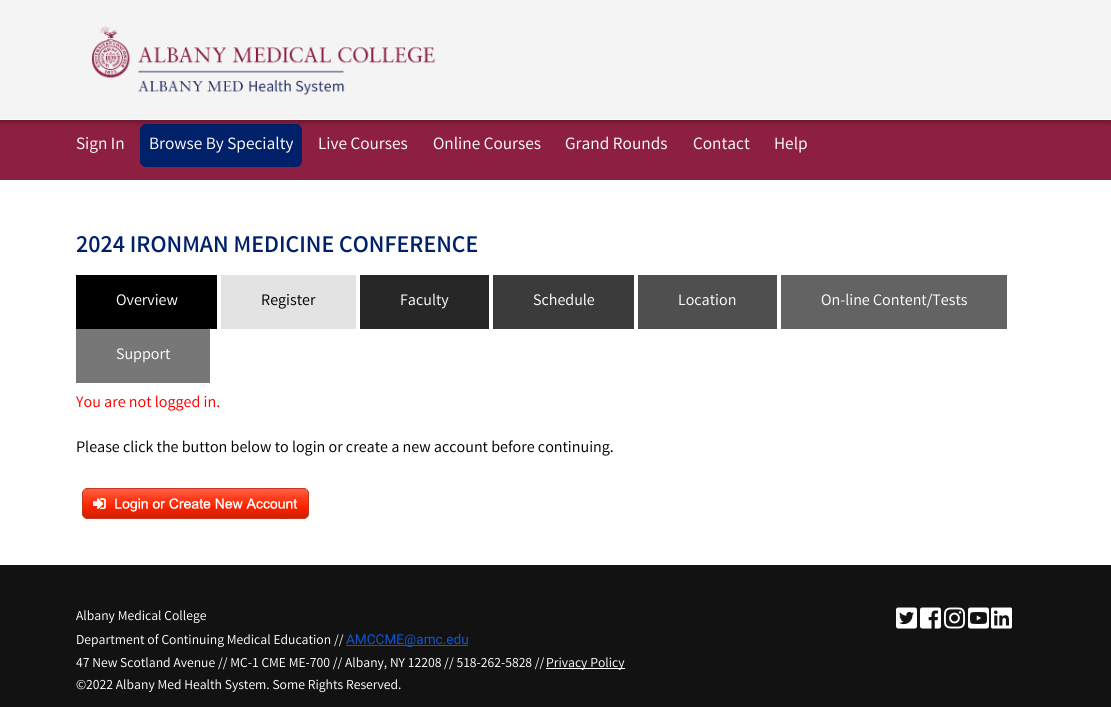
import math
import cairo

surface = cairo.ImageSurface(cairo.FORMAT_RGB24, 1111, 707)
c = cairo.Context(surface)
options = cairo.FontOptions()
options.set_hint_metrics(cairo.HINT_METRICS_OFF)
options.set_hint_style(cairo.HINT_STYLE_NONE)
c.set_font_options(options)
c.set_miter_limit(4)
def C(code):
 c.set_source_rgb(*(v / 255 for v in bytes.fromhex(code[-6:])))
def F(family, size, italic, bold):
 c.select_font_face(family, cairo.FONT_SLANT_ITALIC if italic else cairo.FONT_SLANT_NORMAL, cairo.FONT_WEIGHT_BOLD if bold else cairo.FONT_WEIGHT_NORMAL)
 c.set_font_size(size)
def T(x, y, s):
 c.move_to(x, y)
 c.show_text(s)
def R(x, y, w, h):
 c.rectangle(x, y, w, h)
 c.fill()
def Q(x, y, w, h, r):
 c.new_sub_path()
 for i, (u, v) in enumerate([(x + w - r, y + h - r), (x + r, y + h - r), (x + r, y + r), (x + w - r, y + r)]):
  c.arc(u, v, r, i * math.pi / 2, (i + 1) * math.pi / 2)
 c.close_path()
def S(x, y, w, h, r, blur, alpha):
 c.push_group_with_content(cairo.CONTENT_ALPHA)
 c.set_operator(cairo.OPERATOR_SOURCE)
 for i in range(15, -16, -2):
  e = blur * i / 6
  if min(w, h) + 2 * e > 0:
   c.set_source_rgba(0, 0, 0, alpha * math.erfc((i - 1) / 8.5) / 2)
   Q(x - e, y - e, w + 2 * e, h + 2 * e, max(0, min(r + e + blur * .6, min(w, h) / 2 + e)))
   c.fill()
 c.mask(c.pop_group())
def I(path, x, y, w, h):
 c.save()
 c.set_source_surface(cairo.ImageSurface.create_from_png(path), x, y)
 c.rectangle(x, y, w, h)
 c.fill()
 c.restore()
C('ffffff')
c.paint()
C('8d1f41')
R(0,120,1111,60)
C('00216a')
Q(140,124,162,43,6)
c.fill()
C('000000')
S(0,3,1111,120,0,2,.25)
C('f4f4f4')
R(0,0,1111,119)
C('ffffff')
R(0,119,1111,1)
I('1.png',91,26,345,70)
F('Varta',17.25,0,0)
T(76,149,'Sign In')
T(149,149,'Browse By Specialty')
T(318,149,'Live Courses')
T(433,149,'Online Courses')
T(565,149,'Grand Rounds')
T(693,149,'Contact')
T(774,149,'Help')
F('Varta',24,0,1)
C('00216a')
T(76,252,'2024 IRONMAN MEDICINE CONFERENCE')
C('000000')
R(76,275,141,54)
F('Varta',16,0,0)
C('ffffff')
T(116,305,'Overview')
C('e3e3e3')
R(221,275,135,54)
C('000000')
T(261,305,'Register')
C('272727')
R(360,275,129,54)
C('ffffff')
T(400,305,'Faculty')
C('3b3b3b')
R(493,275,141,54)
C('ffffff')
T(533,305,'Schedule')
C('4f4f4f')
R(638,275,139,54)
C('ffffff')
T(678,305,'Location')
C('636363')
R(781,275,226,54)
C('ffffff')
T(821,305,'On-line Content/Tests')
C('777777')
R(76,329,134,54)
C('ffffff')
T(116,359,'Support')
C('ff0000')
T(76,407,'You are not logged in.')
C('000000')
T(76,452,'Please click the button below to login or create a new account before continuing.')
I('2.png',82,488,227,31)
C('121212')
R(0,565,1111,142)
F('Varta',13.6,0,0)
C('ffffff')
T(76,620,'Albany Medical College')
T(76,644,'Department of Continuing Medical Education //')
C('1155cc')
R(346,645,122,1)
F('Roboto',13.6,0,0)
T(346,644,'AMCCME@amc.edu')
F('Varta',13.6,0,0)
C('ffffff')
T(76,667,'47 New Scotland Avenue // MC-1 CME ME-700 // Albany, NY 12208 // 518-262-5828 //')
R(546,668,79,1)
T(546,667,'Privacy Policy')
T(76,689,'©2022 Albany Med Health System. Some Rights Reserved.')
I('3.png',896,607,21,22)
I('4.png',920,607,21,22)
I('5.png',944,607,21,22)
I('6.png',968,607,21,22)
I('7.png',991,607,21,22)
surface.write_to_png('o.png')
